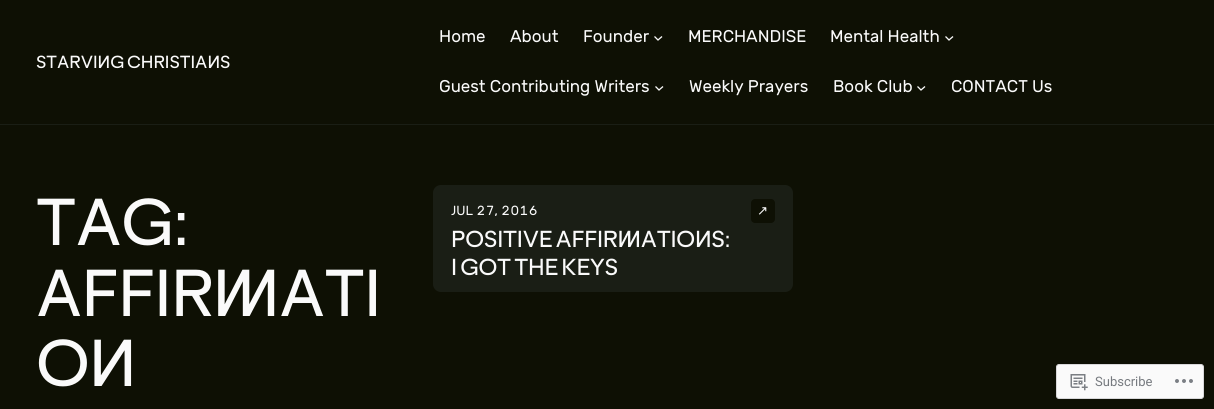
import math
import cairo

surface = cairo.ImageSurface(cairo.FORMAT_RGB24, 1214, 409)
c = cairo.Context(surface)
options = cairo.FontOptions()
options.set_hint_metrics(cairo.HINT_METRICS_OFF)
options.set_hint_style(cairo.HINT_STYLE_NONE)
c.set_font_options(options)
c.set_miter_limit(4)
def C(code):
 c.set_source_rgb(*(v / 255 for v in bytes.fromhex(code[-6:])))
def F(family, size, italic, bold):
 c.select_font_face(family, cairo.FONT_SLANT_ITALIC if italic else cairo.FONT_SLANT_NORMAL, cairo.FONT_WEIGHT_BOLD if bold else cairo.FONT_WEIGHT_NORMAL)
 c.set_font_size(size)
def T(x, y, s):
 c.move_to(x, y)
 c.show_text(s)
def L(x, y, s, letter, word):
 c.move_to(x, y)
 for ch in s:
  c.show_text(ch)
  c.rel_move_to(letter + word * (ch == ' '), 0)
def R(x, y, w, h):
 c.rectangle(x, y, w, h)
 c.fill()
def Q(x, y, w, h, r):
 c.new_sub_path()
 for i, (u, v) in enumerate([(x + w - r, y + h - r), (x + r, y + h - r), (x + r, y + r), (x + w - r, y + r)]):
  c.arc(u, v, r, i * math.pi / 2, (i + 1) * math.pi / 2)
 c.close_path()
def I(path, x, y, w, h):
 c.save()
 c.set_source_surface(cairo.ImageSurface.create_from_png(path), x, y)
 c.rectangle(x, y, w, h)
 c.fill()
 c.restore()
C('0e1004')
c.paint()
C('1a1e15')
R(0,124,1214,1)
F('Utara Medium',17,0,0)
C('fafafa')
T(36,68,'STARVING CHRISTIANS')
F('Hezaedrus',17,0,0)
T(439,42,'Home')
T(510,42,'About')
T(583,42,'Founder')
c.new_path()
c.move_to(654.5,36.5)
c.line_to(658,40)
c.line_to(662,36.5)
c.set_line_width(1.3)
c.stroke()
T(688,42,'MERCHANDISE')
T(830,42,'Mental Health')
c.new_path()
c.move_to(945.5,36.5)
c.line_to(949,40)
c.line_to(953,36.5)
c.stroke()
T(439,92,'Guest Contributing Writers')
c.new_path()
c.move_to(655.5,86.5)
c.line_to(659,90)
c.line_to(663,86.5)
c.stroke()
T(689,92,'Weekly Prayers')
T(833,92,'Book Club')
c.new_path()
c.move_to(917.5,86.5)
c.line_to(921,90)
c.line_to(925,86.5)
c.stroke()
T(951,92,'CONTACT Us')
F('Utara Medium',64,0,0)
L(36,245,'TAG:',-.75,0)
L(36,316,'AFFIRMATI',-.75,0)
L(36,386,'ON',-.75,0)
C('1a1e15')
Q(433,185,360,107,8)
c.fill()
F('Hezaedrus',13.25,0,0)
C('fafafa')
T(451,215,'JUL 27, 2016')
C('0e1004')
Q(751,199,24,24,4)
c.fill()
F('DejaVu Sans',13.25,0,0)
C('fafafa')
T(757,215,'↗')
F('Utara Medium',22.4,0,0)
L(451,247,'POSITIVE AFFIRMATIONS:',-.25,0)
L(451,275,'I GOT THE KEYS',-.25,0)
Q(1056.5,364.5,147,34,2.5)
c.fill_preserve()
C('d8d8da')
c.set_line_width(1)
c.stroke()
I('1.png',1070,374,18,17)
F('Roboto',13,0,0)
C('767a7f')
T(1095,386,'Subscribe')
I('2.png',1175,379,18,4)
surface.write_to_png('o.png')
